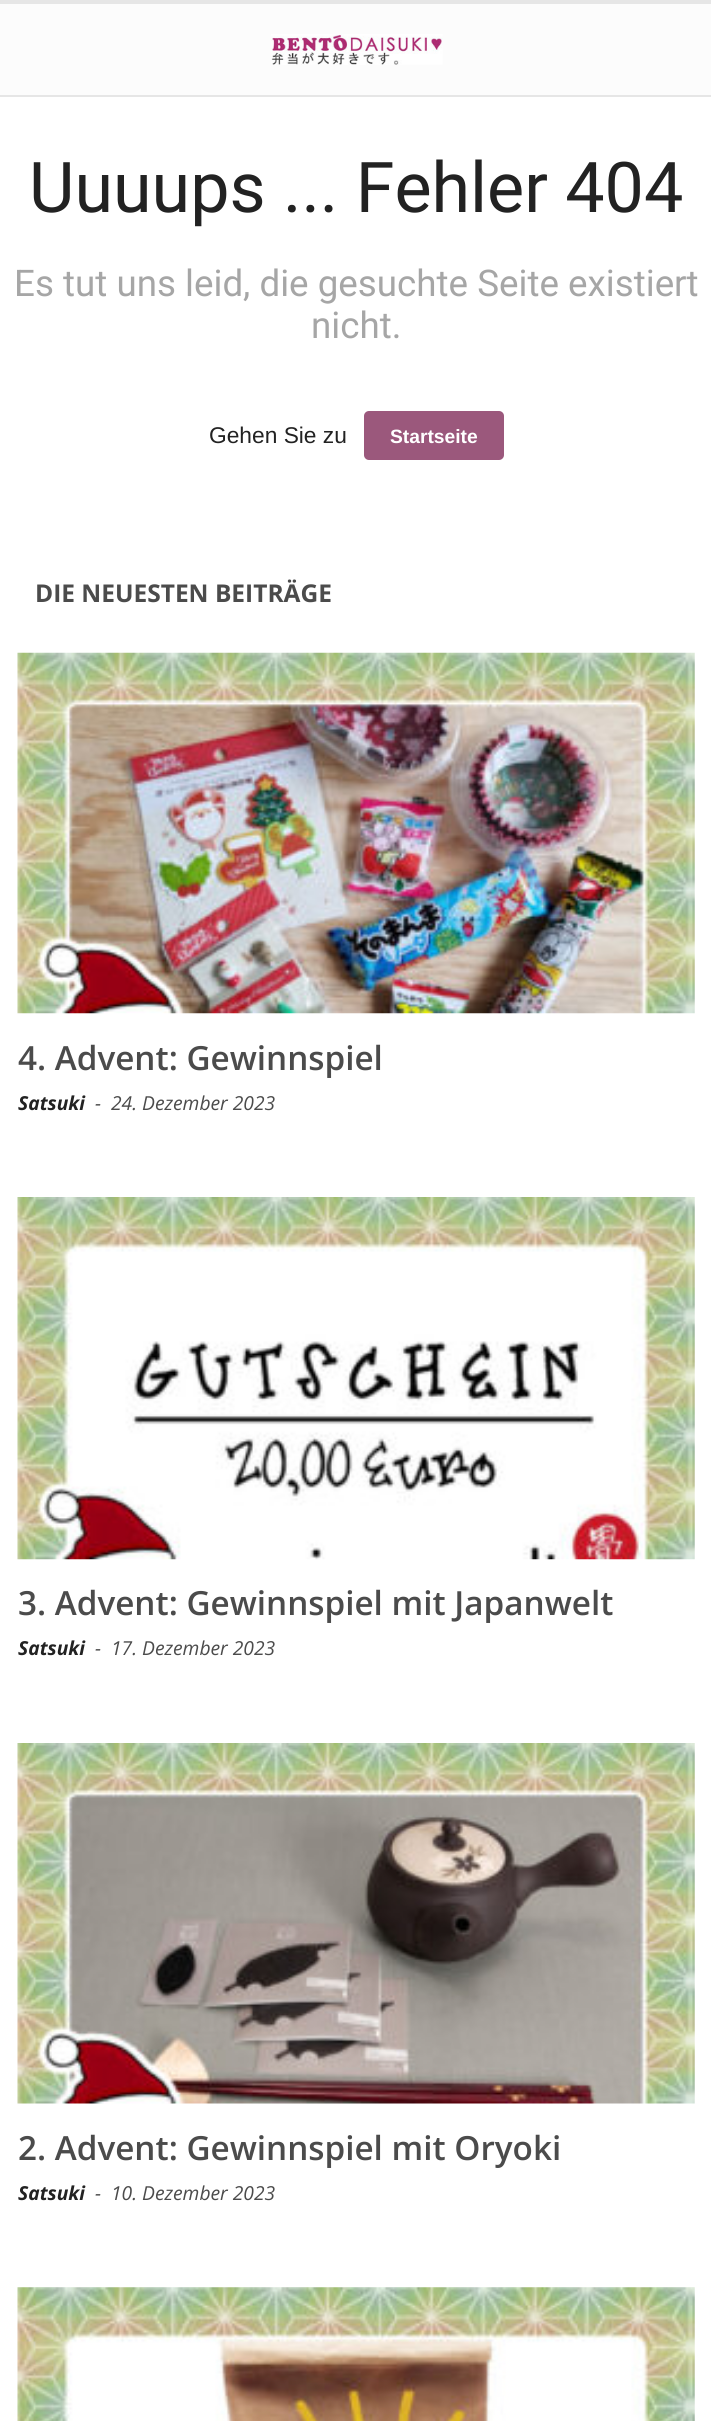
import math
import cairo

surface = cairo.ImageSurface(cairo.FORMAT_RGB24, 711, 2421)
c = cairo.Context(surface)
options = cairo.FontOptions()
options.set_hint_metrics(cairo.HINT_METRICS_OFF)
options.set_hint_style(cairo.HINT_STYLE_NONE)
c.set_font_options(options)
c.set_miter_limit(4)
def C(code):
 c.set_source_rgb(*(v / 255 for v in bytes.fromhex(code[-6:])))
def F(family, size, italic, bold):
 c.select_font_face(family, cairo.FONT_SLANT_ITALIC if italic else cairo.FONT_SLANT_NORMAL, cairo.FONT_WEIGHT_BOLD if bold else cairo.FONT_WEIGHT_NORMAL)
 c.set_font_size(size)
def T(x, y, s):
 c.move_to(x, y)
 c.show_text(s)
def R(x, y, w, h):
 c.rectangle(x, y, w, h)
 c.fill()
def Q(x, y, w, h, r):
 c.new_sub_path()
 for i, (u, v) in enumerate([(x + w - r, y + h - r), (x + r, y + h - r), (x + r, y + r), (x + w - r, y + r)]):
  c.arc(u, v, r, i * math.pi / 2, (i + 1) * math.pi / 2)
 c.close_path()
def I(path, x, y, w, h):
 c.save()
 c.set_source_surface(cairo.ImageSurface.create_from_png(path), x, y)
 c.rectangle(x, y, w, h)
 c.fill()
 c.restore()
C('ffffff')
c.paint()
C('fcfcfc')
R(0,4,711,91)
C('e6e6e6')
R(0,0,711,4)
R(0,95,711,2)
I('1.png',271,34,172,31)
F('Roboto',70,0,0)
C('222222')
T(29,212,'Uuuups ... Fehler 404')
F('Roboto',36.75,0,0)
C('a6a6a6')
T(14,296,'Es tut uns leid, die gesuchte Seite existiert')
T(311,338,'nicht.')
F('Liberation Sans',22.75,0,0)
C('222222')
T(209,443,'Gehen Sie zu')
C('9b587c')
Q(364,411,140,49,5)
c.fill()
F('Liberation Sans',19.25,0,1)
C('ffffff')
T(390,443,'Startseite')
F('Open Sans',24.5,0,1)
C('4b4b4b')
T(35,602,'DIE NEUESTEN BEITRÄGE')
I('2.png',17,652,678,362)
F('Open Sans SemiBold',33.25,0,0)
T(18,1070,'4. Advent: Gewinnspiel')
F('Open Sans',19.25,1,1)
C('222222')
T(18,1110,'Satsuki')
F('Open Sans',19.25,1,0)
C('4b4b4b')
T(95,1110,'-')
T(111,1110,'24. Dezember 2023')
I('3.png',17,1197,678,363)
F('Open Sans SemiBold',33.25,0,0)
T(18,1615,'3. Advent: Gewinnspiel mit Japanwelt')
F('Open Sans',19.25,1,1)
C('222222')
T(18,1655,'Satsuki')
F('Open Sans',19.25,1,0)
C('4b4b4b')
T(95,1655,'-')
T(111,1655,'17. Dezember 2023')
I('4.png',17,1743,678,361)
F('Open Sans SemiBold',33.25,0,0)
T(18,2160,'2. Advent: Gewinnspiel mit Oryoki')
F('Open Sans',19.25,1,1)
C('222222')
T(18,2200,'Satsuki')
F('Open Sans',19.25,1,0)
C('4b4b4b')
T(95,2200,'-')
T(111,2200,'10. Dezember 2023')
I('5.png',17,2287,678,134)
surface.write_to_png('o.png')
